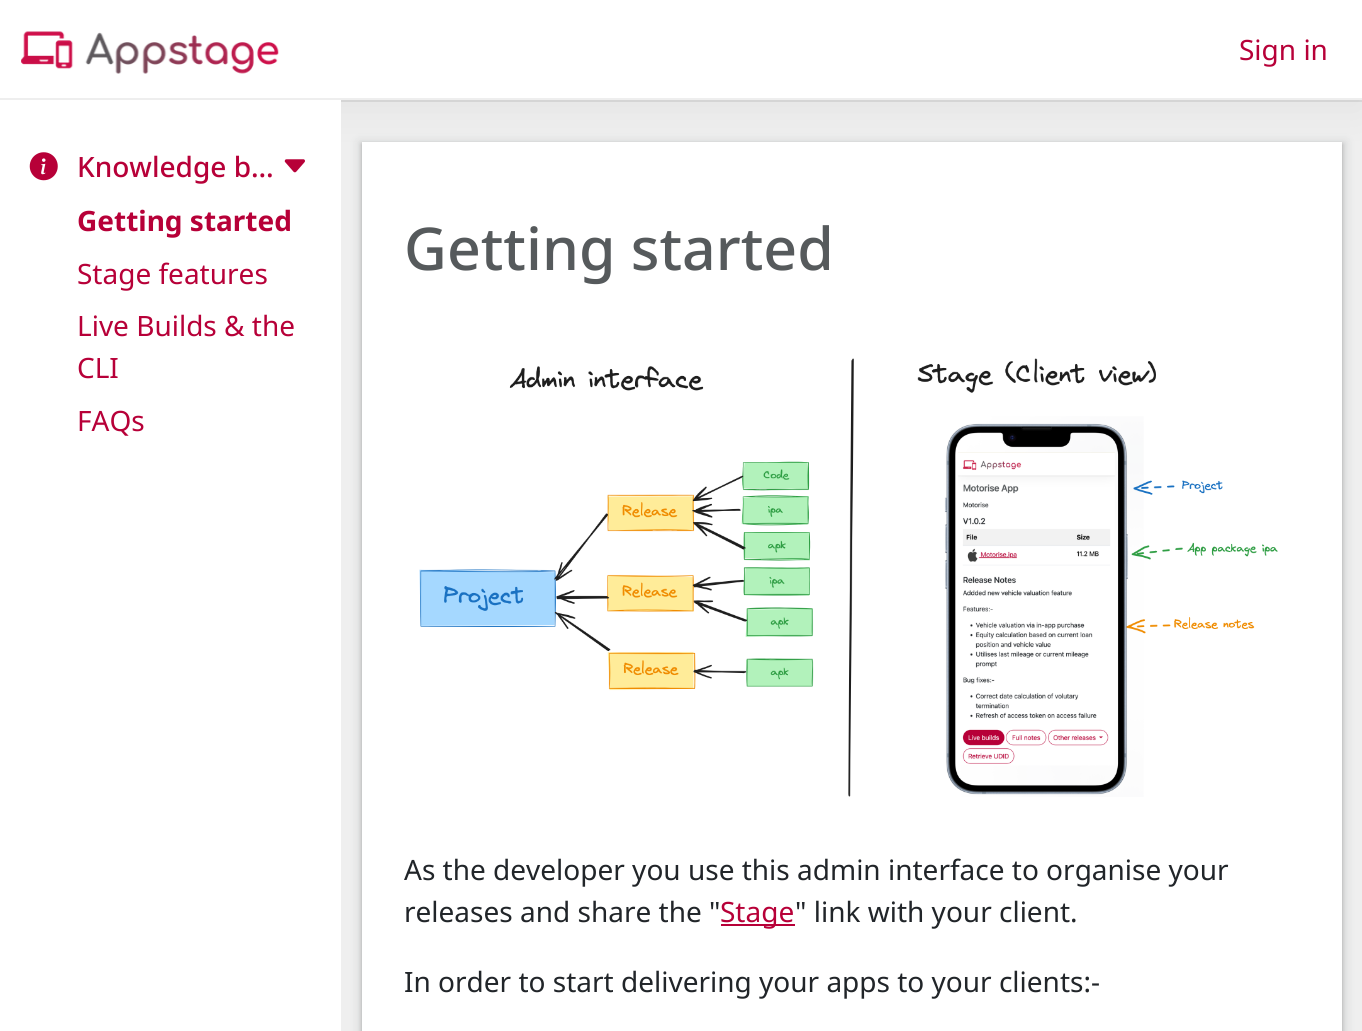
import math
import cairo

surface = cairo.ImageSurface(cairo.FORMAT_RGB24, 1362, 1031)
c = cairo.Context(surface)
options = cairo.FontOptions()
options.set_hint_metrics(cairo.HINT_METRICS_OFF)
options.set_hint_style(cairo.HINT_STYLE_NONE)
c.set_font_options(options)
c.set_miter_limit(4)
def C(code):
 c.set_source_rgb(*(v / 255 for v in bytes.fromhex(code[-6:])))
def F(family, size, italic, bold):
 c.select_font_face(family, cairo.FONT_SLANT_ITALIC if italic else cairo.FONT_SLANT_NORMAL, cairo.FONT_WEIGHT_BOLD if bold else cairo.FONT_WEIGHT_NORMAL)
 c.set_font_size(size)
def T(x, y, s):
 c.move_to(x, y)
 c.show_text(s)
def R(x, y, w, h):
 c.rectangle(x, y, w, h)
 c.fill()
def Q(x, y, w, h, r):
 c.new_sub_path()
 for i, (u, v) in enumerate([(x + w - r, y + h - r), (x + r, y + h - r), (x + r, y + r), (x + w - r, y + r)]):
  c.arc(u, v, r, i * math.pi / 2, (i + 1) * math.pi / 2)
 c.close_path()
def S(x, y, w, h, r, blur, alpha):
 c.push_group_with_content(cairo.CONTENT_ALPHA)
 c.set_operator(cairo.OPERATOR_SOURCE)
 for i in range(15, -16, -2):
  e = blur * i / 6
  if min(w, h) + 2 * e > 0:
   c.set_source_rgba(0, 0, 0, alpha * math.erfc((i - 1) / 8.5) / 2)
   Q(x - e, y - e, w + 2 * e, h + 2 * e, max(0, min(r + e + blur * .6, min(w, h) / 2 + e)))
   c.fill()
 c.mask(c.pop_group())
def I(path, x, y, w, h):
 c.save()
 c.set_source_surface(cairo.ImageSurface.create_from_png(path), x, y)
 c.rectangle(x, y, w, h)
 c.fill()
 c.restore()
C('efefef')
c.paint()
c.rectangle(-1,-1,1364,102)
C('dcdcdc')
c.stroke()
C('3c4043')
S(359,142,987,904,0,5,.15)
S(362,144,980,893,0,2,.3)
C('ffffff')
R(362,142,980,889)
C('000000')
S(0,11,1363,99,0,21,.05)
C('ffffff')
R(0,0,1362,98)
C('eeeeee')
R(0,98,1362,2)
I('1.png',21,31,258,43)
F('Noto Sans',28,0,0)
C('b70038')
T(1239,60,'Sign in')
C('ffffff')
R(0,100,341,931)
I('2.png',29,152,29,29)
F('Noto Sans Medium',28,0,0)
C('b70038')
T(77,177,'Knowledge b…')
I('3.png',284,159,21,14)
F('Noto Sans',28,0,1)
T(77,231,'Getting started')
F('Noto Sans',28,0,0)
T(77,284,'Stage features')
T(77,336,'Live Builds & the')
T(77,378,'CLI')
T(77,431,'FAQs')
F('Noto Sans Medium',59,0,0)
C('565a5c')
T(404,270,'Getting started')
I('4.png',419,358,859,439)
F('Noto Sans',28,0,0)
C('212529')
T(404,880,'As the developer you use this admin interface to organise your')
T(404,922,'releases and share the "')
C('b70038')
R(721,924,74,2)
T(720,922,'Stage')
C('212529')
T(795,922,'" link with your client.')
T(404,992,'In order to start delivering your apps to your clients:-')
surface.write_to_png('o.png')
